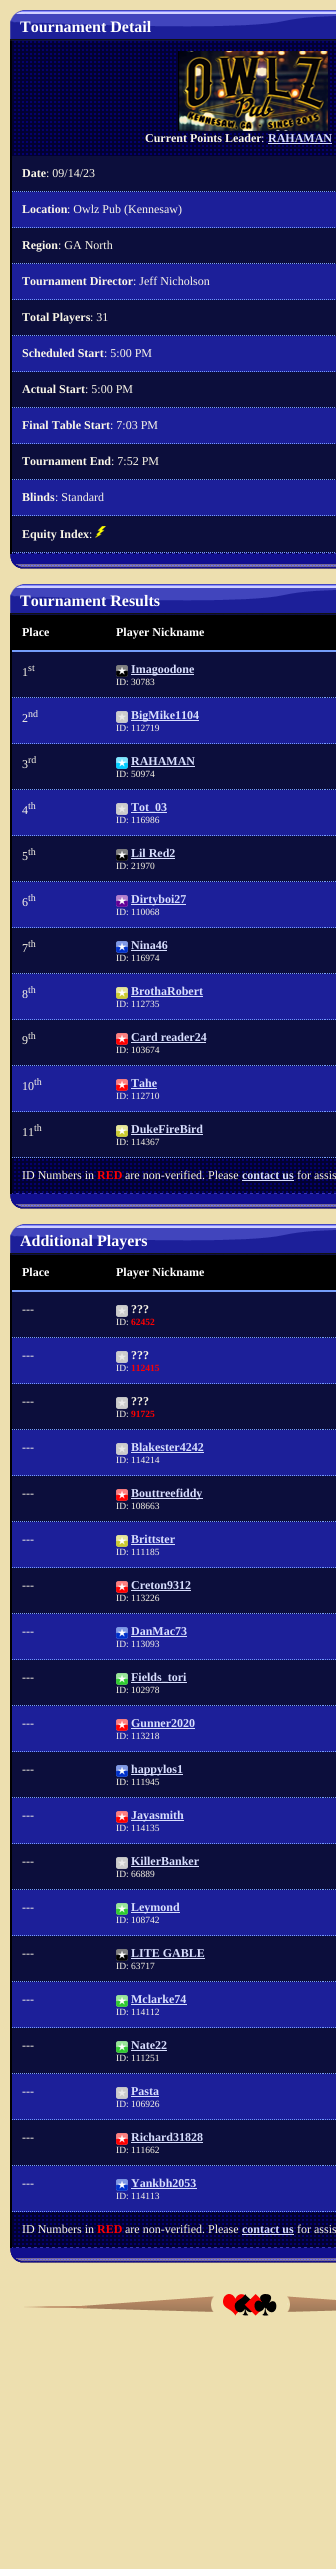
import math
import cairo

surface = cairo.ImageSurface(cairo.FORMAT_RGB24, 336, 2569)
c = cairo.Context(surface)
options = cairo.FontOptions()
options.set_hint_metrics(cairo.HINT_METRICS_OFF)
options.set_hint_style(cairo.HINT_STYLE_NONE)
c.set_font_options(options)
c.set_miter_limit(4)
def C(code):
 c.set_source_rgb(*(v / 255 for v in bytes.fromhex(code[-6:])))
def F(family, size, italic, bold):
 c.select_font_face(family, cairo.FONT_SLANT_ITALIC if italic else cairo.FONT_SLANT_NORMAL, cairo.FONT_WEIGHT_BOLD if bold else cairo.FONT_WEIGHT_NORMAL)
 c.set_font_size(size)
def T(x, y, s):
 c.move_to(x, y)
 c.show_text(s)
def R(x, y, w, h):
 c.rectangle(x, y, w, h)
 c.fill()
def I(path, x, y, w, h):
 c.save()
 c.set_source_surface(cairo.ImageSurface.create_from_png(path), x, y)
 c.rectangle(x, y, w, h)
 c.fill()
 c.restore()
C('eddfaf')
c.paint()
I('1.png',10,10,326,31)
F('Liberation Serif',16,0,1)
C('ffffff')
T(20,32,'Tournament Detail')
I('2.png',12,41,324,115)
C('000000')
R(10,41,2,512)
I('3.png',178,51,150,80)
F('Liberation Serif',12,0,1)
C('faf6e7')
T(145,142,'Current Points Leader')
F('Liberation Serif',12,0,0)
T(261,142,':')
F('Liberation Serif',12,0,1)
C('d8defe')
T(268,142,'RAHAMAN')
R(268,143,64,1)
C('0c0e3c')
R(12,156,324,36)
c.new_path()
c.move_to(12,191.5)
c.line_to(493,191.5)
C('759dfa')
c.set_line_width(1)
c.set_dash([1,1])
c.stroke()
C('faf6e7')
T(22,177,'Date')
F('Liberation Serif',12,0,0)
T(46,177,': 09/14/23')
C('1c1f99')
R(12,192,324,36)
c.new_path()
c.move_to(12,227.5)
c.line_to(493,227.5)
C('759dfa')
c.stroke()
F('Liberation Serif',12,0,1)
C('faf6e7')
T(22,213,'Location')
F('Liberation Serif',12,0,0)
T(67,213,': Owlz Pub (Kennesaw)')
C('0c0e3c')
R(12,228,324,36)
c.new_path()
c.move_to(12,263.5)
c.line_to(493,263.5)
C('759dfa')
c.stroke()
F('Liberation Serif',12,0,1)
C('faf6e7')
T(22,249,'Region')
F('Liberation Serif',12,0,0)
T(58,249,': GA North')
C('1c1f99')
R(12,264,324,36)
c.new_path()
c.move_to(12,299.5)
c.line_to(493,299.5)
C('759dfa')
c.stroke()
F('Liberation Serif',12,0,1)
C('faf6e7')
T(22,285,'Tournament Director')
F('Liberation Serif',12,0,0)
T(133,285,': Jeff Nicholson')
C('0c0e3c')
R(12,300,324,36)
c.new_path()
c.move_to(12,335.5)
c.line_to(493,335.5)
C('759dfa')
c.stroke()
F('Liberation Serif',12,0,1)
C('faf6e7')
T(22,321,'Total Players')
F('Liberation Serif',12,0,0)
T(90,321,': 31')
C('1c1f99')
R(12,336,324,36)
c.new_path()
c.move_to(12,371.5)
c.line_to(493,371.5)
C('759dfa')
c.stroke()
F('Liberation Serif',12,0,1)
C('faf6e7')
T(22,357,'Scheduled Start')
F('Liberation Serif',12,0,0)
T(104,357,': 5:00 PM')
C('0c0e3c')
R(12,372,324,36)
c.new_path()
c.move_to(12,407.5)
c.line_to(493,407.5)
C('759dfa')
c.stroke()
F('Liberation Serif',12,0,1)
C('faf6e7')
T(22,393,'Actual Start')
F('Liberation Serif',12,0,0)
T(85,393,': 5:00 PM')
C('1c1f99')
R(12,408,324,36)
c.new_path()
c.move_to(12,443.5)
c.line_to(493,443.5)
C('759dfa')
c.stroke()
F('Liberation Serif',12,0,1)
C('faf6e7')
T(22,429,'Final Table Start')
F('Liberation Serif',12,0,0)
T(110,429,': 7:03 PM')
C('0c0e3c')
R(12,444,324,36)
c.new_path()
c.move_to(12,479.5)
c.line_to(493,479.5)
C('759dfa')
c.stroke()
F('Liberation Serif',12,0,1)
C('faf6e7')
T(22,465,'Tournament End')
F('Liberation Serif',12,0,0)
T(111,465,': 7:52 PM')
C('1c1f99')
R(12,480,324,36)
c.new_path()
c.move_to(12,515.5)
c.line_to(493,515.5)
C('759dfa')
c.stroke()
F('Liberation Serif',12,0,1)
C('faf6e7')
T(22,501,'Blinds')
F('Liberation Serif',12,0,0)
T(55,501,': Standard')
C('0c0e3c')
R(12,516,324,37)
c.new_path()
c.move_to(12,552.5)
c.line_to(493,552.5)
C('759dfa')
c.stroke()
F('Liberation Serif',12,0,1)
C('faf6e7')
T(22,538,'Equity Index')
F('Liberation Serif',12,0,0)
T(89,538,':')
I('4.png',95,526,11,12)
I('5.png',10,553,326,16)
I('1.png',10,584,326,31)
F('Liberation Serif',16,0,1)
C('ffffff')
T(20,606,'Tournament Results')
I('6.png',12,1158,324,35)
C('000000')
R(10,615,2,578)
R(12,615,324,35)
C('759dfa')
R(12,650,324,2)
F('Liberation Serif',12,0,1)
C('ffffff')
T(22,636,'Place')
T(116,636,'Player Nickname')
C('0c0e3c')
R(12,652,324,46)
c.new_path()
c.move_to(12,697.5)
c.line_to(106,697.5)
C('759dfa')
c.stroke()
F('Liberation Serif',12,0,0)
C('faf6e7')
T(22,676,'1')
F('Liberation Serif',10,0,0)
T(28,671,'st')
c.new_path()
c.move_to(106,697.5)
c.line_to(325,697.5)
C('759dfa')
c.stroke()
I('7.png',116,665,12,12)
C('d8defe')
R(131,674,63,1)
F('Liberation Serif',12,0,1)
T(131,673,'Imagoodone')
F('Liberation Serif',9.5,0,0)
C('faf6e7')
T(116,685,'ID: 30783')
c.new_path()
c.move_to(325,697.5)
c.line_to(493,697.5)
C('759dfa')
c.stroke()
C('1c1f99')
R(12,698,324,46)
c.new_path()
c.move_to(12,743.5)
c.line_to(106,743.5)
C('759dfa')
c.stroke()
F('Liberation Serif',12,0,0)
C('faf6e7')
T(22,722,'2')
F('Liberation Serif',10,0,0)
T(28,717,'nd')
c.new_path()
c.move_to(106,743.5)
c.line_to(325,743.5)
C('759dfa')
c.stroke()
I('8.png',116,711,12,12)
C('d8defe')
R(131,720,68,1)
F('Liberation Serif',12,0,1)
T(131,719,'BigMike1104')
F('Liberation Serif',9.5,0,0)
C('faf6e7')
T(116,731,'ID: 112719')
c.new_path()
c.move_to(325,743.5)
c.line_to(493,743.5)
C('759dfa')
c.stroke()
C('0c0e3c')
R(12,744,324,46)
c.new_path()
c.move_to(12,789.5)
c.line_to(106,789.5)
C('759dfa')
c.stroke()
F('Liberation Serif',12,0,0)
C('faf6e7')
T(22,768,'3')
F('Liberation Serif',10,0,0)
T(28,763,'rd')
c.new_path()
c.move_to(106,789.5)
c.line_to(325,789.5)
C('759dfa')
c.stroke()
I('9.png',116,757,12,12)
F('Liberation Serif',12,0,1)
C('d8defe')
T(131,765,'RAHAMAN')
R(131,766,64,1)
F('Liberation Serif',9.5,0,0)
C('faf6e7')
T(116,777,'ID: 50974')
c.new_path()
c.move_to(325,789.5)
c.line_to(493,789.5)
C('759dfa')
c.stroke()
C('1c1f99')
R(12,790,324,46)
c.new_path()
c.move_to(12,835.5)
c.line_to(106,835.5)
C('759dfa')
c.stroke()
F('Liberation Serif',12,0,0)
C('faf6e7')
T(22,814,'4')
F('Liberation Serif',10,0,0)
T(28,809,'th')
c.new_path()
c.move_to(106,835.5)
c.line_to(325,835.5)
C('759dfa')
c.stroke()
I('8.png',116,803,12,12)
C('d8defe')
R(131,812,36,1)
F('Liberation Serif',12,0,1)
T(131,811,'Tot_03')
F('Liberation Serif',9.5,0,0)
C('faf6e7')
T(116,823,'ID: 116986')
c.new_path()
c.move_to(325,835.5)
c.line_to(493,835.5)
C('759dfa')
c.stroke()
C('0c0e3c')
R(12,836,324,46)
c.new_path()
c.move_to(12,881.5)
c.line_to(106,881.5)
C('759dfa')
c.stroke()
F('Liberation Serif',12,0,0)
C('faf6e7')
T(22,860,'5')
F('Liberation Serif',10,0,0)
T(28,855,'th')
c.new_path()
c.move_to(106,881.5)
c.line_to(325,881.5)
C('759dfa')
c.stroke()
I('7.png',116,849,12,12)
F('Liberation Serif',12,0,1)
C('d8defe')
T(131,857,'Lil Red2')
R(131,858,44,1)
F('Liberation Serif',9.5,0,0)
C('faf6e7')
T(116,869,'ID: 21970')
c.new_path()
c.move_to(325,881.5)
c.line_to(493,881.5)
C('759dfa')
c.stroke()
C('1c1f99')
R(12,882,324,46)
c.new_path()
c.move_to(12,927.5)
c.line_to(106,927.5)
C('759dfa')
c.stroke()
F('Liberation Serif',12,0,0)
C('faf6e7')
T(22,906,'6')
F('Liberation Serif',10,0,0)
T(28,901,'th')
c.new_path()
c.move_to(106,927.5)
c.line_to(325,927.5)
C('759dfa')
c.stroke()
I('10.png',116,895,12,12)
C('d8defe')
R(131,904,55,1)
F('Liberation Serif',12,0,1)
T(131,903,'Dirtyboi27')
F('Liberation Serif',9.5,0,0)
C('faf6e7')
T(116,915,'ID: 110068')
c.new_path()
c.move_to(325,927.5)
c.line_to(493,927.5)
C('759dfa')
c.stroke()
C('0c0e3c')
R(12,928,324,46)
c.new_path()
c.move_to(12,973.5)
c.line_to(106,973.5)
C('759dfa')
c.stroke()
F('Liberation Serif',12,0,0)
C('faf6e7')
T(22,952,'7')
F('Liberation Serif',10,0,0)
T(28,947,'th')
c.new_path()
c.move_to(106,973.5)
c.line_to(325,973.5)
C('759dfa')
c.stroke()
I('11.png',116,941,12,12)
F('Liberation Serif',12,0,1)
C('d8defe')
T(131,949,'Nina46')
R(131,950,36,1)
F('Liberation Serif',9.5,0,0)
C('faf6e7')
T(116,961,'ID: 116974')
c.new_path()
c.move_to(325,973.5)
c.line_to(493,973.5)
C('759dfa')
c.stroke()
C('1c1f99')
R(12,974,324,46)
c.new_path()
c.move_to(12,1019.5)
c.line_to(106,1019.5)
C('759dfa')
c.stroke()
F('Liberation Serif',12,0,0)
C('faf6e7')
T(22,998,'8')
F('Liberation Serif',10,0,0)
T(28,993,'th')
c.new_path()
c.move_to(106,1019.5)
c.line_to(325,1019.5)
C('759dfa')
c.stroke()
I('12.png',116,987,12,12)
F('Liberation Serif',12,0,1)
C('d8defe')
T(131,995,'BrothaRobert')
R(131,996,72,1)
F('Liberation Serif',9.5,0,0)
C('faf6e7')
T(116,1007,'ID: 112735')
c.new_path()
c.move_to(325,1019.5)
c.line_to(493,1019.5)
C('759dfa')
c.stroke()
C('0c0e3c')
R(12,1020,324,46)
c.new_path()
c.move_to(12,1065.5)
c.line_to(106,1065.5)
C('759dfa')
c.stroke()
F('Liberation Serif',12,0,0)
C('faf6e7')
T(22,1044,'9')
F('Liberation Serif',10,0,0)
T(28,1039,'th')
c.new_path()
c.move_to(106,1065.5)
c.line_to(325,1065.5)
C('759dfa')
c.stroke()
I('13.png',116,1033,12,12)
F('Liberation Serif',12,0,1)
C('d8defe')
T(131,1041,'Card reader24')
R(131,1042,75,1)
F('Liberation Serif',9.5,0,0)
C('faf6e7')
T(116,1053,'ID: 103674')
c.new_path()
c.move_to(325,1065.5)
c.line_to(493,1065.5)
C('759dfa')
c.stroke()
C('1c1f99')
R(12,1066,324,46)
c.new_path()
c.move_to(12,1111.5)
c.line_to(106,1111.5)
C('759dfa')
c.stroke()
F('Liberation Serif',12,0,0)
C('faf6e7')
T(22,1090,'10')
F('Liberation Serif',10,0,0)
T(34,1085,'th')
c.new_path()
c.move_to(106,1111.5)
c.line_to(325,1111.5)
C('759dfa')
c.stroke()
I('14.png',116,1079,12,12)
F('Liberation Serif',12,0,1)
C('d8defe')
T(131,1087,'Tahe')
R(131,1088,26,1)
F('Liberation Serif',9.5,0,0)
C('faf6e7')
T(116,1099,'ID: 112710')
c.new_path()
c.move_to(325,1111.5)
c.line_to(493,1111.5)
C('759dfa')
c.stroke()
C('0c0e3c')
R(12,1112,324,46)
c.new_path()
c.move_to(12,1157.5)
c.line_to(106,1157.5)
C('759dfa')
c.stroke()
F('Liberation Serif',12,0,0)
C('faf6e7')
T(22,1136,'11')
F('Liberation Serif',10,0,0)
T(34,1131,'th')
c.new_path()
c.move_to(106,1157.5)
c.line_to(325,1157.5)
C('759dfa')
c.stroke()
I('15.png',116,1125,12,12)
F('Liberation Serif',12,0,1)
C('d8defe')
T(131,1133,'DukeFireBird')
R(131,1134,72,1)
F('Liberation Serif',9.5,0,0)
C('faf6e7')
T(116,1145,'ID: 114367')
c.new_path()
c.move_to(325,1157.5)
c.line_to(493,1157.5)
C('759dfa')
c.stroke()
F('Liberation Serif',12,0,0)
C('faf6e7')
T(22,1179,'ID Numbers in')
F('Liberation Serif',12,0,1)
C('ff0000')
T(97,1179,'RED')
F('Liberation Serif',12,0,0)
C('faf6e7')
T(125,1179,'are non-verified. Please')
F('Liberation Serif',12,0,1)
C('d8defe')
T(242,1179,'contact us')
R(242,1180,52,1)
F('Liberation Serif',12,0,0)
C('faf6e7')
T(297,1179,'for assis')
I('5.png',10,1193,326,16)
I('1.png',10,1224,326,31)
F('Liberation Serif',16,0,1)
C('ffffff')
T(20,1246,'Additional Players')
C('020131')
R(12,2245,324,2)
I('16.png',12,2212,324,33)
C('000000')
R(10,1255,2,992)
R(12,1255,324,35)
C('759dfa')
R(12,1290,324,2)
F('Liberation Serif',12,0,1)
C('ffffff')
T(22,1276,'Place')
T(116,1276,'Player Nickname')
C('0c0e3c')
R(12,1292,324,46)
c.new_path()
c.move_to(12,1337.5)
c.line_to(106,1337.5)
C('759dfa')
c.stroke()
F('Liberation Serif',12,0,0)
C('faf6e7')
T(22,1313,'---')
c.new_path()
c.move_to(106,1337.5)
c.line_to(323,1337.5)
C('759dfa')
c.stroke()
I('17.png',116,1305,12,12)
F('Liberation Serif',12,0,1)
C('faf6e7')
T(131,1313,'???')
F('Liberation Serif',9.5,0,0)
T(116,1325,'ID:')
F('Liberation Serif',9.5,0,1)
C('ff0000')
T(131,1325,'62452')
c.new_path()
c.move_to(323,1337.5)
c.line_to(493,1337.5)
C('759dfa')
c.stroke()
C('1c1f99')
R(12,1338,324,46)
c.new_path()
c.move_to(12,1383.5)
c.line_to(106,1383.5)
C('759dfa')
c.stroke()
F('Liberation Serif',12,0,0)
C('faf6e7')
T(22,1359,'---')
c.new_path()
c.move_to(106,1383.5)
c.line_to(323,1383.5)
C('759dfa')
c.stroke()
I('8.png',116,1351,12,12)
F('Liberation Serif',12,0,1)
C('faf6e7')
T(131,1359,'???')
F('Liberation Serif',9.5,0,0)
T(116,1371,'ID:')
F('Liberation Serif',9.5,0,1)
C('ff0000')
T(131,1371,'112415')
c.new_path()
c.move_to(323,1383.5)
c.line_to(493,1383.5)
C('759dfa')
c.stroke()
C('0c0e3c')
R(12,1384,324,46)
c.new_path()
c.move_to(12,1429.5)
c.line_to(106,1429.5)
C('759dfa')
c.stroke()
F('Liberation Serif',12,0,0)
C('faf6e7')
T(22,1405,'---')
c.new_path()
c.move_to(106,1429.5)
c.line_to(323,1429.5)
C('759dfa')
c.stroke()
I('17.png',116,1397,12,12)
F('Liberation Serif',12,0,1)
C('faf6e7')
T(131,1405,'???')
F('Liberation Serif',9.5,0,0)
T(116,1417,'ID:')
F('Liberation Serif',9.5,0,1)
C('ff0000')
T(131,1417,'91725')
c.new_path()
c.move_to(323,1429.5)
c.line_to(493,1429.5)
C('759dfa')
c.stroke()
C('1c1f99')
R(12,1430,324,46)
c.new_path()
c.move_to(12,1475.5)
c.line_to(106,1475.5)
C('759dfa')
c.stroke()
F('Liberation Serif',12,0,0)
C('faf6e7')
T(22,1451,'---')
c.new_path()
c.move_to(106,1475.5)
c.line_to(323,1475.5)
C('759dfa')
c.stroke()
I('8.png',116,1443,12,12)
F('Liberation Serif',12,0,1)
C('d8defe')
T(131,1451,'Blakester4242')
R(131,1452,73,1)
F('Liberation Serif',9.5,0,0)
C('faf6e7')
T(116,1463,'ID: 114214')
c.new_path()
c.move_to(323,1475.5)
c.line_to(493,1475.5)
C('759dfa')
c.stroke()
C('0c0e3c')
R(12,1476,324,46)
c.new_path()
c.move_to(12,1521.5)
c.line_to(106,1521.5)
C('759dfa')
c.stroke()
F('Liberation Serif',12,0,0)
C('faf6e7')
T(22,1497,'---')
c.new_path()
c.move_to(106,1521.5)
c.line_to(323,1521.5)
C('759dfa')
c.stroke()
I('13.png',116,1489,12,12)
C('d8defe')
R(131,1498,72,1)
F('Liberation Serif',12,0,1)
T(131,1497,'Bouttreefiddy')
F('Liberation Serif',9.5,0,0)
C('faf6e7')
T(116,1509,'ID: 108663')
c.new_path()
c.move_to(323,1521.5)
c.line_to(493,1521.5)
C('759dfa')
c.stroke()
C('1c1f99')
R(12,1522,324,46)
c.new_path()
c.move_to(12,1567.5)
c.line_to(106,1567.5)
C('759dfa')
c.stroke()
F('Liberation Serif',12,0,0)
C('faf6e7')
T(22,1543,'---')
c.new_path()
c.move_to(106,1567.5)
c.line_to(323,1567.5)
C('759dfa')
c.stroke()
I('12.png',116,1535,12,12)
F('Liberation Serif',12,0,1)
C('d8defe')
T(131,1543,'Brittster')
R(131,1544,44,1)
F('Liberation Serif',9.5,0,0)
C('faf6e7')
T(116,1555,'ID: 111185')
c.new_path()
c.move_to(323,1567.5)
c.line_to(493,1567.5)
C('759dfa')
c.stroke()
C('0c0e3c')
R(12,1568,324,46)
c.new_path()
c.move_to(12,1613.5)
c.line_to(106,1613.5)
C('759dfa')
c.stroke()
F('Liberation Serif',12,0,0)
C('faf6e7')
T(22,1589,'---')
c.new_path()
c.move_to(106,1613.5)
c.line_to(323,1613.5)
C('759dfa')
c.stroke()
I('13.png',116,1581,12,12)
F('Liberation Serif',12,0,1)
C('d8defe')
T(131,1589,'Creton9312')
R(131,1590,60,1)
F('Liberation Serif',9.5,0,0)
C('faf6e7')
T(116,1601,'ID: 113226')
c.new_path()
c.move_to(323,1613.5)
c.line_to(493,1613.5)
C('759dfa')
c.stroke()
C('1c1f99')
R(12,1614,324,46)
c.new_path()
c.move_to(12,1659.5)
c.line_to(106,1659.5)
C('759dfa')
c.stroke()
F('Liberation Serif',12,0,0)
C('faf6e7')
T(22,1635,'---')
c.new_path()
c.move_to(106,1659.5)
c.line_to(323,1659.5)
C('759dfa')
c.stroke()
I('18.png',116,1627,12,12)
F('Liberation Serif',12,0,1)
C('d8defe')
T(131,1635,'DanMac73')
R(131,1636,56,1)
F('Liberation Serif',9.5,0,0)
C('faf6e7')
T(116,1647,'ID: 113093')
c.new_path()
c.move_to(323,1659.5)
c.line_to(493,1659.5)
C('759dfa')
c.stroke()
C('0c0e3c')
R(12,1660,324,46)
c.new_path()
c.move_to(12,1705.5)
c.line_to(106,1705.5)
C('759dfa')
c.stroke()
F('Liberation Serif',12,0,0)
C('faf6e7')
T(22,1681,'---')
c.new_path()
c.move_to(106,1705.5)
c.line_to(323,1705.5)
C('759dfa')
c.stroke()
I('19.png',116,1673,12,12)
C('d8defe')
R(131,1682,56,1)
F('Liberation Serif',12,0,1)
T(131,1681,'Fields_tori')
F('Liberation Serif',9.5,0,0)
C('faf6e7')
T(116,1693,'ID: 102978')
c.new_path()
c.move_to(323,1705.5)
c.line_to(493,1705.5)
C('759dfa')
c.stroke()
C('1c1f99')
R(12,1706,324,46)
c.new_path()
c.move_to(12,1751.5)
c.line_to(106,1751.5)
C('759dfa')
c.stroke()
F('Liberation Serif',12,0,0)
C('faf6e7')
T(22,1727,'---')
c.new_path()
c.move_to(106,1751.5)
c.line_to(323,1751.5)
C('759dfa')
c.stroke()
I('14.png',116,1719,12,12)
F('Liberation Serif',12,0,1)
C('d8defe')
T(131,1727,'Gunner2020')
R(131,1728,64,1)
F('Liberation Serif',9.5,0,0)
C('faf6e7')
T(116,1739,'ID: 113218')
c.new_path()
c.move_to(323,1751.5)
c.line_to(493,1751.5)
C('759dfa')
c.stroke()
C('0c0e3c')
R(12,1752,324,46)
c.new_path()
c.move_to(12,1797.5)
c.line_to(106,1797.5)
C('759dfa')
c.stroke()
F('Liberation Serif',12,0,0)
C('faf6e7')
T(22,1773,'---')
c.new_path()
c.move_to(106,1797.5)
c.line_to(323,1797.5)
C('759dfa')
c.stroke()
I('11.png',116,1765,12,12)
C('d8defe')
R(131,1774,52,1)
F('Liberation Serif',12,0,1)
T(131,1773,'happylos1')
F('Liberation Serif',9.5,0,0)
C('faf6e7')
T(116,1785,'ID: 111945')
c.new_path()
c.move_to(323,1797.5)
c.line_to(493,1797.5)
C('759dfa')
c.stroke()
C('1c1f99')
R(12,1798,324,46)
c.new_path()
c.move_to(12,1843.5)
c.line_to(106,1843.5)
C('759dfa')
c.stroke()
F('Liberation Serif',12,0,0)
C('faf6e7')
T(22,1819,'---')
c.new_path()
c.move_to(106,1843.5)
c.line_to(323,1843.5)
C('759dfa')
c.stroke()
I('14.png',116,1811,12,12)
C('d8defe')
R(131,1820,53,1)
F('Liberation Serif',12,0,1)
T(131,1819,'Jayasmith')
F('Liberation Serif',9.5,0,0)
C('faf6e7')
T(116,1831,'ID: 114135')
c.new_path()
c.move_to(323,1843.5)
c.line_to(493,1843.5)
C('759dfa')
c.stroke()
C('0c0e3c')
R(12,1844,324,46)
c.new_path()
c.move_to(12,1889.5)
c.line_to(106,1889.5)
C('759dfa')
c.stroke()
F('Liberation Serif',12,0,0)
C('faf6e7')
T(22,1865,'---')
c.new_path()
c.move_to(106,1889.5)
c.line_to(323,1889.5)
C('759dfa')
c.stroke()
I('17.png',116,1857,12,12)
F('Liberation Serif',12,0,1)
C('d8defe')
T(131,1865,'KillerBanker')
R(131,1866,68,1)
F('Liberation Serif',9.5,0,0)
C('faf6e7')
T(116,1877,'ID: 66889')
c.new_path()
c.move_to(323,1889.5)
c.line_to(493,1889.5)
C('759dfa')
c.stroke()
C('1c1f99')
R(12,1890,324,46)
c.new_path()
c.move_to(12,1935.5)
c.line_to(106,1935.5)
C('759dfa')
c.stroke()
F('Liberation Serif',12,0,0)
C('faf6e7')
T(22,1911,'---')
c.new_path()
c.move_to(106,1935.5)
c.line_to(323,1935.5)
C('759dfa')
c.stroke()
I('20.png',116,1903,12,12)
C('d8defe')
R(131,1912,49,1)
F('Liberation Serif',12,0,1)
T(131,1911,'Leymond')
F('Liberation Serif',9.5,0,0)
C('faf6e7')
T(116,1923,'ID: 108742')
c.new_path()
c.move_to(323,1935.5)
c.line_to(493,1935.5)
C('759dfa')
c.stroke()
C('0c0e3c')
R(12,1936,324,46)
c.new_path()
c.move_to(12,1981.5)
c.line_to(106,1981.5)
C('759dfa')
c.stroke()
F('Liberation Serif',12,0,0)
C('faf6e7')
T(22,1957,'---')
c.new_path()
c.move_to(106,1981.5)
c.line_to(323,1981.5)
C('759dfa')
c.stroke()
I('7.png',116,1949,12,12)
F('Liberation Serif',12,0,1)
C('d8defe')
T(131,1957,'LITE GABLE')
R(131,1958,74,1)
F('Liberation Serif',9.5,0,0)
C('faf6e7')
T(116,1969,'ID: 63717')
c.new_path()
c.move_to(323,1981.5)
c.line_to(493,1981.5)
C('759dfa')
c.stroke()
C('1c1f99')
R(12,1982,324,46)
c.new_path()
c.move_to(12,2027.5)
c.line_to(106,2027.5)
C('759dfa')
c.stroke()
F('Liberation Serif',12,0,0)
C('faf6e7')
T(22,2003,'---')
c.new_path()
c.move_to(106,2027.5)
c.line_to(323,2027.5)
C('759dfa')
c.stroke()
I('20.png',116,1995,12,12)
F('Liberation Serif',12,0,1)
C('d8defe')
T(131,2003,'Mclarke74')
R(131,2004,56,1)
F('Liberation Serif',9.5,0,0)
C('faf6e7')
T(116,2015,'ID: 114112')
c.new_path()
c.move_to(323,2027.5)
c.line_to(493,2027.5)
C('759dfa')
c.stroke()
C('0c0e3c')
R(12,2028,324,46)
c.new_path()
c.move_to(12,2073.5)
c.line_to(106,2073.5)
C('759dfa')
c.stroke()
F('Liberation Serif',12,0,0)
C('faf6e7')
T(22,2049,'---')
c.new_path()
c.move_to(106,2073.5)
c.line_to(323,2073.5)
C('759dfa')
c.stroke()
I('19.png',116,2041,12,12)
F('Liberation Serif',12,0,1)
C('d8defe')
T(131,2049,'Nate22')
R(131,2050,36,1)
F('Liberation Serif',9.5,0,0)
C('faf6e7')
T(116,2061,'ID: 111251')
c.new_path()
c.move_to(323,2073.5)
c.line_to(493,2073.5)
C('759dfa')
c.stroke()
C('1c1f99')
R(12,2074,324,46)
c.new_path()
c.move_to(12,2119.5)
c.line_to(106,2119.5)
C('759dfa')
c.stroke()
F('Liberation Serif',12,0,0)
C('faf6e7')
T(22,2095,'---')
c.new_path()
c.move_to(106,2119.5)
c.line_to(323,2119.5)
C('759dfa')
c.stroke()
I('8.png',116,2087,12,12)
F('Liberation Serif',12,0,1)
C('d8defe')
T(131,2095,'Pasta')
R(131,2096,28,1)
F('Liberation Serif',9.5,0,0)
C('faf6e7')
T(116,2107,'ID: 106926')
c.new_path()
c.move_to(323,2119.5)
c.line_to(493,2119.5)
C('759dfa')
c.stroke()
C('0c0e3c')
R(12,2120,324,46)
c.new_path()
c.move_to(12,2165.5)
c.line_to(106,2165.5)
C('759dfa')
c.stroke()
F('Liberation Serif',12,0,0)
C('faf6e7')
T(22,2141,'---')
c.new_path()
c.move_to(106,2165.5)
c.line_to(323,2165.5)
C('759dfa')
c.stroke()
I('13.png',116,2133,12,12)
F('Liberation Serif',12,0,1)
C('d8defe')
T(131,2141,'Richard31828')
R(131,2142,72,1)
F('Liberation Serif',9.5,0,0)
C('faf6e7')
T(116,2153,'ID: 111662')
c.new_path()
c.move_to(323,2165.5)
c.line_to(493,2165.5)
C('759dfa')
c.stroke()
C('1c1f99')
R(12,2166,324,46)
c.new_path()
c.move_to(12,2211.5)
c.line_to(106,2211.5)
C('759dfa')
c.stroke()
F('Liberation Serif',12,0,0)
C('faf6e7')
T(22,2187,'---')
c.new_path()
c.move_to(106,2211.5)
c.line_to(323,2211.5)
C('759dfa')
c.stroke()
I('18.png',116,2179,12,12)
F('Liberation Serif',12,0,1)
C('d8defe')
T(131,2187,'Yankbh2053')
R(131,2188,66,1)
F('Liberation Serif',9.5,0,0)
C('faf6e7')
T(116,2199,'ID: 114113')
c.new_path()
c.move_to(323,2211.5)
c.line_to(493,2211.5)
C('759dfa')
c.stroke()
F('Liberation Serif',12,0,0)
C('faf6e7')
T(22,2233,'ID Numbers in')
F('Liberation Serif',12,0,1)
C('ff0000')
T(97,2233,'RED')
F('Liberation Serif',12,0,0)
C('faf6e7')
T(125,2233,'are non-verified. Please')
F('Liberation Serif',12,0,1)
C('d8defe')
T(242,2233,'contact us')
R(242,2234,52,1)
F('Liberation Serif',12,0,0)
C('faf6e7')
T(297,2233,'for assis')
I('5.png',10,2247,326,16)
I('21.png',24,2294,312,22)
surface.write_to_png('o.png')
